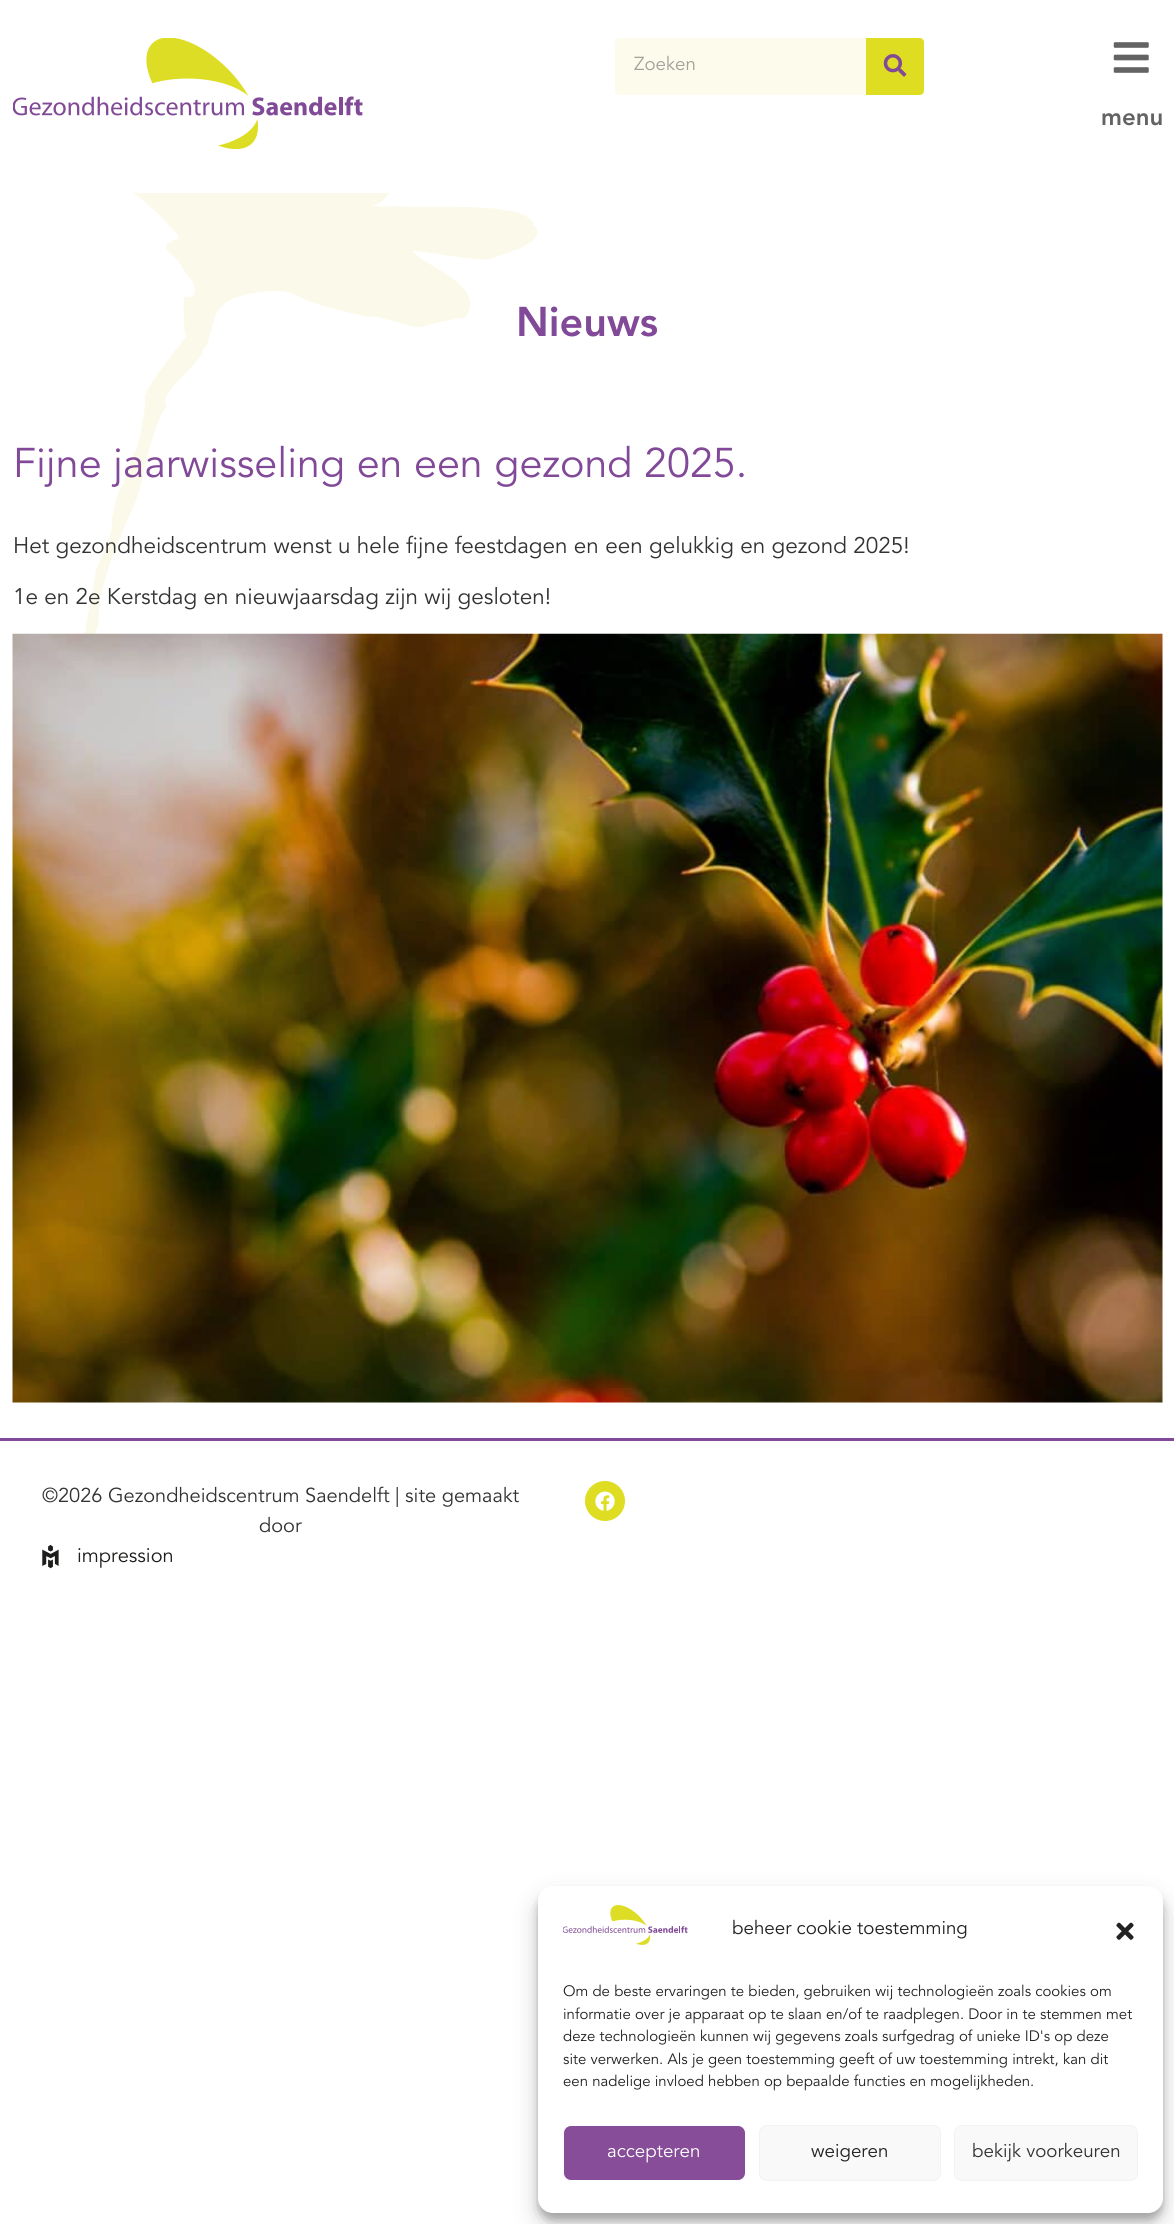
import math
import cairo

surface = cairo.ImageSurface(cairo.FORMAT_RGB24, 1174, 2224)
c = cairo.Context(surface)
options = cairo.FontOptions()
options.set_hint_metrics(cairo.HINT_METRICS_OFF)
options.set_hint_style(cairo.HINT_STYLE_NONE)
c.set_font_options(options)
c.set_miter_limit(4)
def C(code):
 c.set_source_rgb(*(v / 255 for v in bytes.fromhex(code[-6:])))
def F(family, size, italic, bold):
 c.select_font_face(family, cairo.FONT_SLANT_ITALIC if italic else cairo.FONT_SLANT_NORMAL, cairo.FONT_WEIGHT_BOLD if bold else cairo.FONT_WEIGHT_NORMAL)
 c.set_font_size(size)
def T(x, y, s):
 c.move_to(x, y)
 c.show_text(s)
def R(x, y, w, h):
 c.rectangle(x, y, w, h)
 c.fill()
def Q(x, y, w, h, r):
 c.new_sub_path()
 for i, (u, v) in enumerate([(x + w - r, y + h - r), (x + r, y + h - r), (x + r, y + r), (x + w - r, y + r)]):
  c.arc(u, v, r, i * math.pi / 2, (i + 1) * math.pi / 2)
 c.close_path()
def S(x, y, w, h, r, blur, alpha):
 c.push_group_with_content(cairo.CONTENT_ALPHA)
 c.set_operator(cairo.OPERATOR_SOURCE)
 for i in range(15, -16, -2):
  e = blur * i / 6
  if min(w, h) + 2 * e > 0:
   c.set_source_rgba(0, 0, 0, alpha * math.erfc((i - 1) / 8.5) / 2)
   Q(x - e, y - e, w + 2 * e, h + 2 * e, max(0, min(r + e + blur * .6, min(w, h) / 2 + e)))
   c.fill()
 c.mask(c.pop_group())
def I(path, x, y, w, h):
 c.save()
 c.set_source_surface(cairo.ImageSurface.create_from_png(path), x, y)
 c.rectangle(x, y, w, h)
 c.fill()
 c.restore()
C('ffffff')
c.paint()
I('1.png',84,193,454,441)
I('2.png',13,38,350,111)
C('fcfbec')
Q(615,38,309,57,4)
c.fill()
F('Avenir',18.75,0,0)
C('a1a09a')
T(634,70,'Zoeken')
C('dedd21')
c.new_path()
c.move_to(866,38)
c.line_to(920,38)
c.curve_to(922,38,924,40,924,42)
c.line_to(924,91)
c.curve_to(924,93,922,95,920,95)
c.line_to(866,95)
c.close_path()
c.fill()
I('3.png',883,54,24,23)
I('4.png',1113,42,36,31)
F('Avenir Black',24,0,0)
C('646363')
T(1101,125,'menu')
F('Avenir Black',41.25,0,0)
C('814997')
T(516,336,'Nieuws')
F('Avenir',41.25,0,0)
T(13,477,'Fijne jaarwisseling en een gezond 2025.')
F('Avenir',22.5,0,0)
C('333333')
T(13,553,'Het gezondheidscentrum wenst u hele fijne feestdagen en een gelukkig en gezond 2025!')
T(13,604,'1e en 2e Kerstdag en nieuwjaarsdag zijn wij gesloten!')
I('5.png',12,633,1151,770)
C('814997')
R(0,1438,1174,3)
F('Avenir',20,0,0)
C('333333')
T(42,1502,'©2026 Gezondheidscentrum Saendelft | site gemaakt')
T(259,1532,'door')
I('6.png',42,1544,17,25)
C('1d1d1b')
T(77,1562,'impression')
C('dedd21')
c.new_path()
c.arc(605,1501,20,0,2 * math.pi)
c.fill()
I('7.png',595,1491,20,20)
C('000000')
S(538,1894,625,326,15,4,.23)
S(538,1899,625,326,15,12.5,.19)
C('ffffff')
Q(538,1886,625,327,15)
c.fill()
I('8.png',563,1905,125,40)
F('Avenir',18.75,0,0)
C('222222')
T(732,1934,'beheer cookie toestemming')
I('9.png',1116,1922,18,18)
F('Avenir',15,0,0)
T(563,1996,'Om de beste ervaringen te bieden, gebruiken wij technologieën zoals cookies om')
T(563,2019,'informatie over je apparaat op te slaan en/of te raadplegen. Door in te stemmen met')
T(563,2041,'deze technologieën kunnen wij gegevens zoals surfgedrag of unieke ID\'s op deze')
T(563,2064,'site verwerken. Als je geen toestemming geeft of uw toestemming intrekt, kan dit')
T(563,2086,'een nadelige invloed hebben op bepaalde functies en mogelijkheden.')
C('874d99')
Q(563.5,2125.5,182,55,7.5)
c.fill_preserve()
C('ffffff')
c.set_line_width(1)
c.stroke()
F('Avenir',18.75,0,0)
T(607,2157,'accepteren')
C('f9f9f9')
Q(759.5,2125.5,181,55,7.5)
c.fill_preserve()
C('f2f2f2')
c.stroke()
C('222222')
T(811,2157,'weigeren')
C('f9f9f9')
Q(954.5,2125.5,183,55,7.5)
c.fill_preserve()
C('f2f2f2')
c.stroke()
C('333333')
T(972,2157,'bekijk voorkeuren')
surface.write_to_png('o.png')
